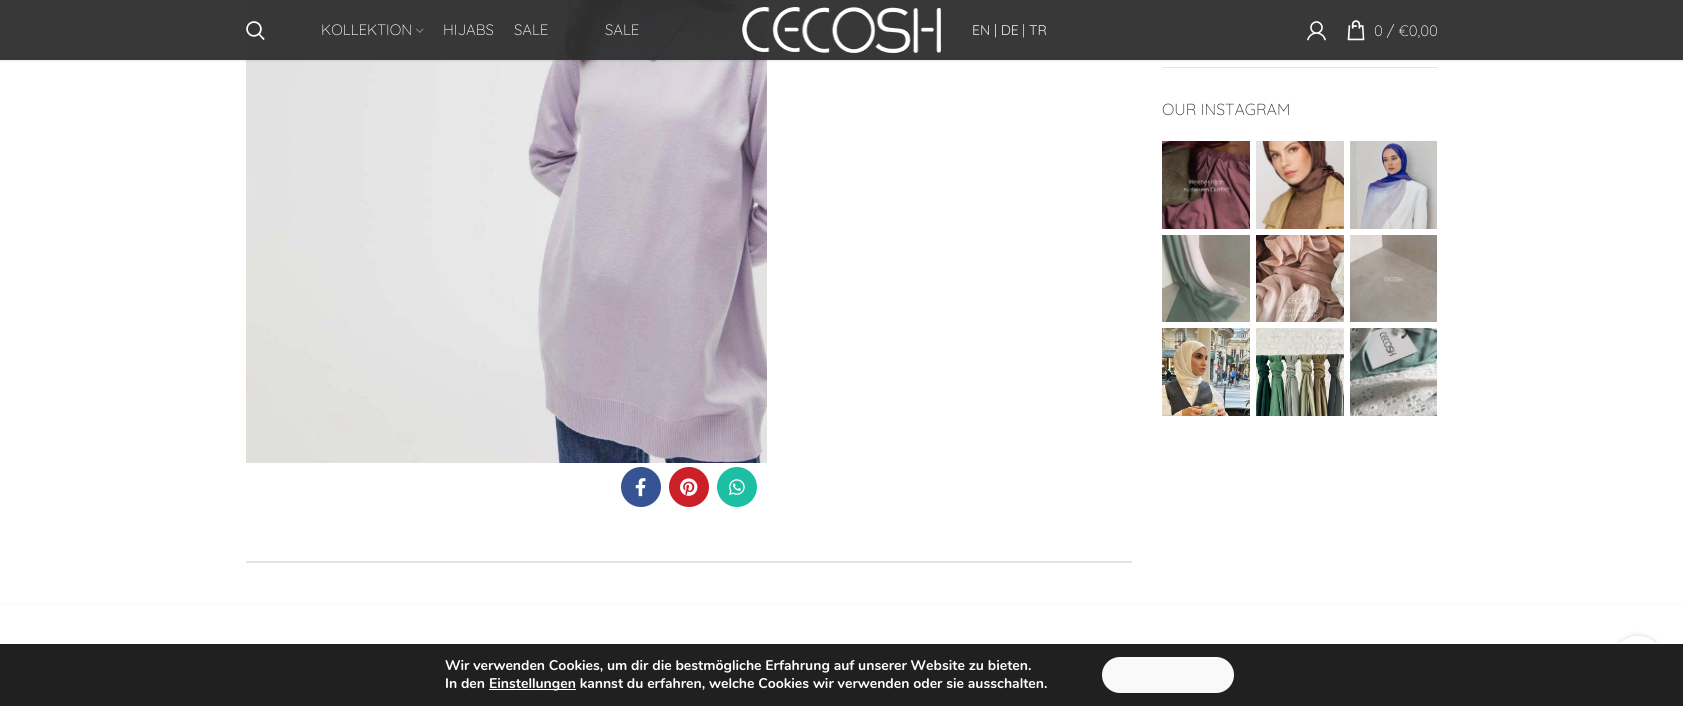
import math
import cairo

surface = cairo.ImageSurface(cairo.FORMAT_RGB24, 1683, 706)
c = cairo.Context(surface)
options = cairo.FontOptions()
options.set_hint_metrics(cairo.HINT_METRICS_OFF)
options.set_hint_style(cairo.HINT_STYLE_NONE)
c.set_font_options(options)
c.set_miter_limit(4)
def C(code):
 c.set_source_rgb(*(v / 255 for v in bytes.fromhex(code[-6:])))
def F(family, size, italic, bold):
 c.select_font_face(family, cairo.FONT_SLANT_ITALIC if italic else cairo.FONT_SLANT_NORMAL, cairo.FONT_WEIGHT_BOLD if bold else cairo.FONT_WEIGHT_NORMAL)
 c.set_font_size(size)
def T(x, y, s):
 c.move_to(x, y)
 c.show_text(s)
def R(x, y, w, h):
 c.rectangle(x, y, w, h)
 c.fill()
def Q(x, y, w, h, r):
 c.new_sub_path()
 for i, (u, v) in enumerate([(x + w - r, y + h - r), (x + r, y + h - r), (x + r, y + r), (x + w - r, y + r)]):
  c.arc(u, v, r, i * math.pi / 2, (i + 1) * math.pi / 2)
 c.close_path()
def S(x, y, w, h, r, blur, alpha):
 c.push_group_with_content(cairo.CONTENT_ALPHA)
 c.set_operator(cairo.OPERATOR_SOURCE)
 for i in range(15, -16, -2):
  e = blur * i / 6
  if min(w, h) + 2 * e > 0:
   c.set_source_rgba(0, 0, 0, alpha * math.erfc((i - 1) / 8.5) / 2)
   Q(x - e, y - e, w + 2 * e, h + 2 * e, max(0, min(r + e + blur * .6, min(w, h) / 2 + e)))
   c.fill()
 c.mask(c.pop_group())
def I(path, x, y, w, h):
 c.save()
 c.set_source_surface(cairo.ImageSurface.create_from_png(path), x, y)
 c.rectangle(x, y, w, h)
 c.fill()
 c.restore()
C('ffffff')
c.paint()
I('6.png',246,0,521,463)
c.save()
c.rectangle(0,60,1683,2)
c.clip()
C('000000')
S(0,1,1683,60,0,1.5,.1)
c.restore()
c.set_source_rgba(0.184,0.184,0.188,0.95)
R(0,0,1683,60)
I('1.png',246,21,19,20)
F('Quicksand Light',15,0,0)
C('ffffff')
T(321,35,'KOLLEKTION')
I('2.png',416,28,8,5)
T(443,35,'HIJABS')
T(514,35,'SALE')
T(605,35,'SALE')
I('3.png',742,7,199,46)
F('Quicksand',14,0,0)
C('ebebeb')
T(972,35,'EN | DE')
C('d7d7d8')
T(1022,35,'|')
C('ebebeb')
T(1029,35,'TR')
I('4.png',1307,21,19,20)
I('5.png',1347,20,18,21)
F('Quicksand Light',15,0,0)
C('ffffff')
T(1374,36,'0 / €0,00')
C('365493')
c.new_path()
c.arc(641,487,20,0,2 * math.pi)
c.fill()
I('7.png',635,478,11,19)
C('cb2027')
c.arc(689,487,20,0,2 * math.pi)
c.fill()
I('8.png',680,478,18,18)
C('1ebea5')
c.arc(737,487,20,0,2 * math.pi)
c.fill()
I('9.png',729,479,16,16)
C('e4e4e4')
R(246,561,886,2)
R(1162,67,276,1)
F('Quicksand Light',16,0,0)
C('333333')
T(1162,115,'OUR INSTAGRAM')
I('10.png',1162,141,88,88)
I('11.png',1256,141,88,88)
I('12.png',1350,141,87,88)
I('13.png',1162,235,88,87)
I('14.png',1256,235,88,87)
I('15.png',1350,235,87,87)
I('16.png',1162,328,88,88)
I('17.png',1256,328,88,88)
I('18.png',1350,328,87,88)
C('f9f9f9')
R(0,603,1683,1)
c.save()
c.set_fill_rule(cairo.FILL_RULE_EVEN_ODD)
c.new_path()
c.move_to(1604,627)
c.line_to(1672,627)
c.line_to(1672,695)
c.line_to(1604,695)
c.close_path()
c.move_to(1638,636)
c.curve_to(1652,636,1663,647,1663,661)
c.curve_to(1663,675,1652,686,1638,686)
c.curve_to(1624,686,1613,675,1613,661)
c.curve_to(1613,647,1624,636,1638,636)
c.close_path()
c.clip()
C('000000')
S(1613,636,50,50,25,2.5,.17)
c.restore()
c.set_source_rgba(1,1,1,0.9)
c.arc(1638,661,25,0,2 * math.pi)
c.fill()
C('202020')
R(0,644,1683,62)
C('ffffff')
R(1615,643,46,1)
F('Nunito',14,0,1)
T(445,670,'Wir verwenden Cookies, um dir die bestmögliche Erfahrung auf unserer Website zu bieten.')
T(445,688,'In den')
R(489,689,87,1)
T(489,688,'Einstellungen kannst du erfahren, welche Cookies wir verwenden oder sie ausschalten.')
C('f9f9fa')
Q(1102,657,132,36,18)
c.fill()
surface.write_to_png('o.png')
